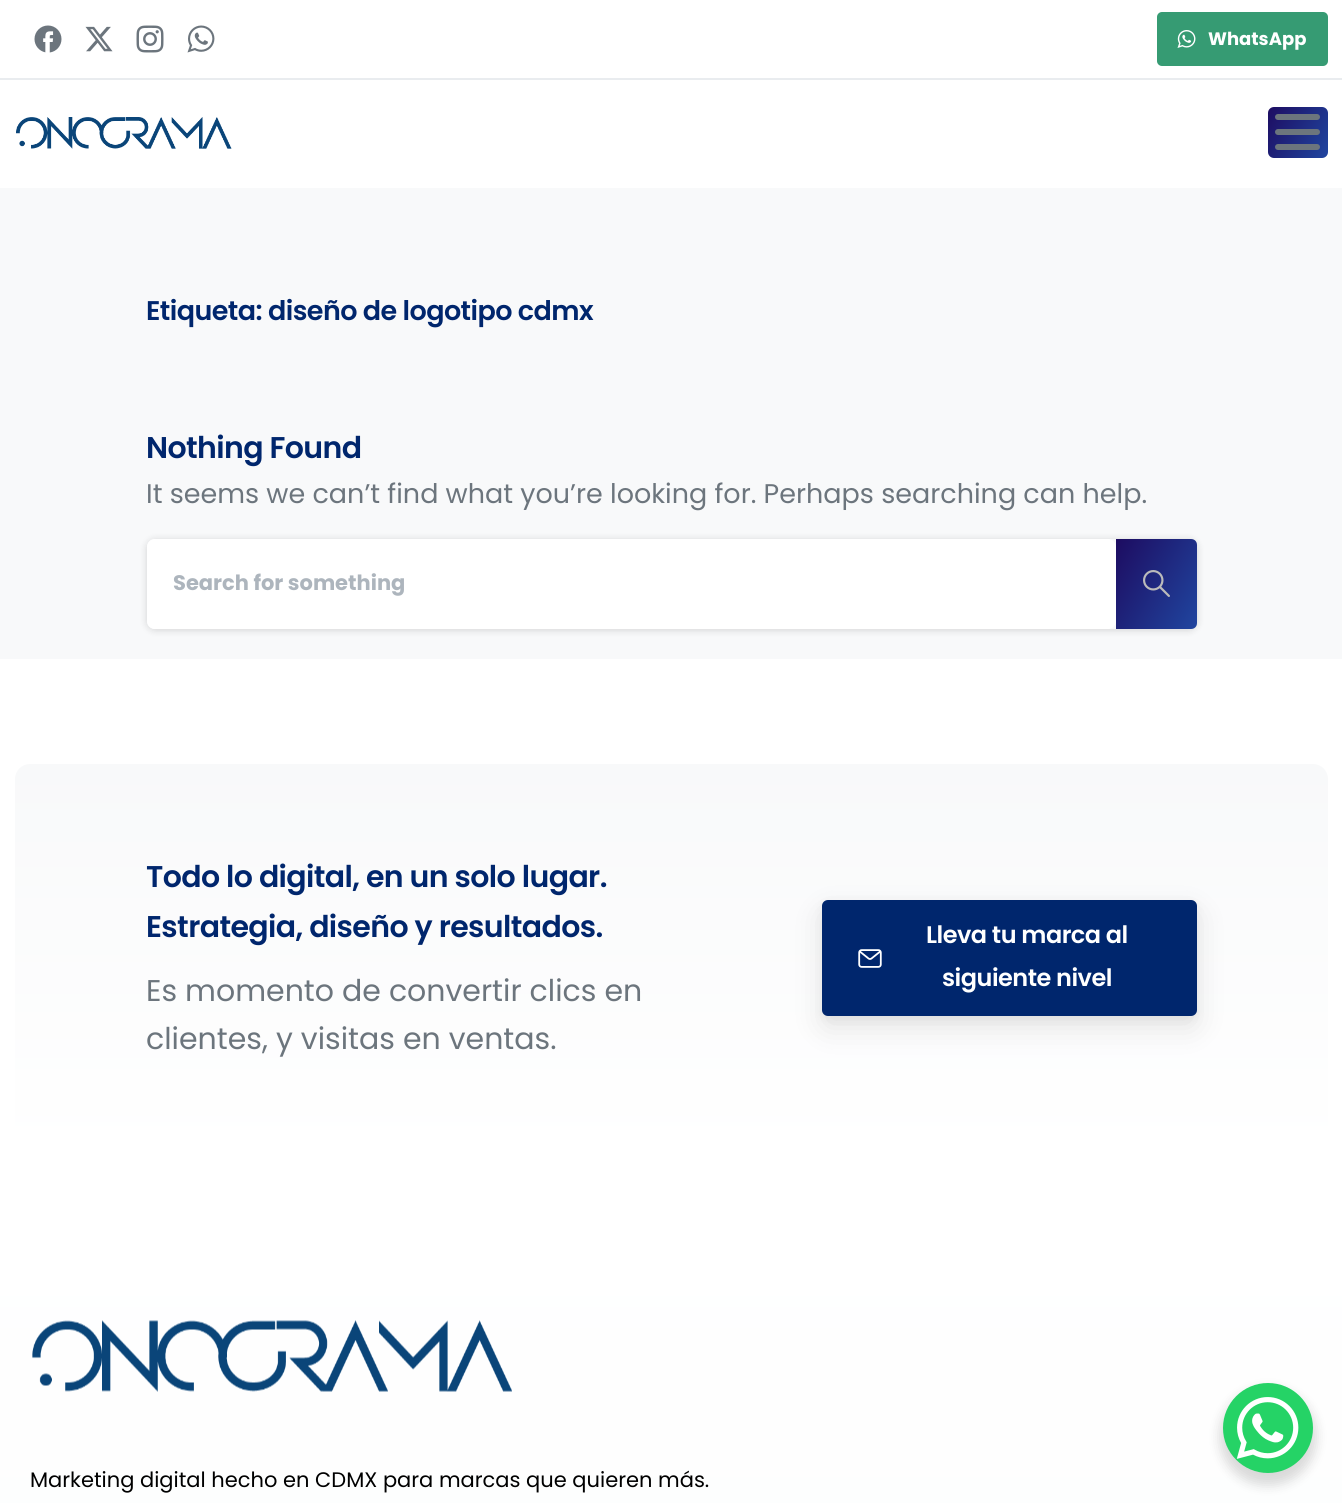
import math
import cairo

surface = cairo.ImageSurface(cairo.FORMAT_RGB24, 1342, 1503)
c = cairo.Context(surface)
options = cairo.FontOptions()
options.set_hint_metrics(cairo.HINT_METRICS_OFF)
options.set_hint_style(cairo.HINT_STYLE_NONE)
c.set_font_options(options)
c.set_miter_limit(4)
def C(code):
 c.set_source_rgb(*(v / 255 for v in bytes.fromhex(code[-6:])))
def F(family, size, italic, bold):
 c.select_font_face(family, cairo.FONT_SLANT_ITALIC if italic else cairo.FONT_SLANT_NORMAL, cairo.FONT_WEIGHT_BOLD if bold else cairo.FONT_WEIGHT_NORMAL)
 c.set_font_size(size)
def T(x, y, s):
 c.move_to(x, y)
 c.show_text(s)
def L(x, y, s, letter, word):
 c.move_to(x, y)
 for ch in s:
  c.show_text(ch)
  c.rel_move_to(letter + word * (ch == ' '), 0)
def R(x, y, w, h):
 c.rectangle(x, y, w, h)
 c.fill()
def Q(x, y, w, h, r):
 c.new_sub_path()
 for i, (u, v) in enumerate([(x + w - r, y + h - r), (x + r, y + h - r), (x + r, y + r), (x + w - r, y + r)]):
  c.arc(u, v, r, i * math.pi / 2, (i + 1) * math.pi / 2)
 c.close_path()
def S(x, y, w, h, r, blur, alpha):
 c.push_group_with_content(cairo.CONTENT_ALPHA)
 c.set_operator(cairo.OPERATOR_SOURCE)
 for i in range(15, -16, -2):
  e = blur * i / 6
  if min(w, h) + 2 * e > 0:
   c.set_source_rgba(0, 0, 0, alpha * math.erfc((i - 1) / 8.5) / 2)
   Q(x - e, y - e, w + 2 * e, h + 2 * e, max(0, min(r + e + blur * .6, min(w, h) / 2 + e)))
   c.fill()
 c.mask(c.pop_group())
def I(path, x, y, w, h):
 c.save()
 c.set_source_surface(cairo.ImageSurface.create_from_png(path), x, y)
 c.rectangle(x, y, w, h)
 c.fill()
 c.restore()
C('f8f9fa')
c.paint()
C('ffffff')
R(0,0,1342,78)
I('1.png',34,25,28,28)
I('2.png',85,26,28,26)
I('3.png',136,25,28,28)
I('4.png',187,25,28,28)
C('369b73')
Q(1157,12,171,54,5)
c.fill()
I('5.png',1177,30,19,18)
F('Poppins',18,0,1)
C('ffffff')
T(1208,45,'WhatsApp')
C('e9ecef')
R(0,78,1342,2)
C('ffffff')
R(0,80,1342,108)
I('6.png',16,117,216,32)
gradient = cairo.LinearGradient(1331,151,1264,113)
gradient.add_color_stop_rgba(0,0.125,0.271,0.624,1)
gradient.add_color_stop_rgba(1,0.114,0.047,0.38,1)
c.set_source(gradient)
Q(1268,107,60,51,6)
c.fill()
C('6c757d')
Q(1275,114,45,6,3)
c.fill()
Q(1275,129,45,6,3)
c.fill()
Q(1275,144,45,6,3)
c.fill()
F('Poppins SemiBold',27,0,0)
C('00266d')
L(146,320,'Etiqueta: diseño de logotipo cdmx',-.55,0)
F('Poppins SemiBold',30,0,0)
L(146,458,'Nothing Found',-.6,0)
F('Poppins',27,0,0)
C('6c757d')
T(146,503,'It seems we can’t find what you’re looking for. Perhaps searching can help.')
c.save()
c.set_fill_rule(cairo.FILL_RULE_EVEN_ODD)
c.new_path()
c.move_to(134,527)
c.line_to(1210,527)
c.line_to(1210,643)
c.line_to(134,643)
c.close_path()
c.move_to(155,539)
c.line_to(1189,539)
c.curve_to(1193.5,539,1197,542.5,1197,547)
c.line_to(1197,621)
c.curve_to(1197,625.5,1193.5,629,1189,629)
c.line_to(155,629)
c.curve_to(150.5,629,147,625.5,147,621)
c.line_to(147,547)
c.curve_to(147,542.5,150.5,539,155,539)
c.close_path()
c.clip()
C('000000')
S(147,540,1050,90,8,4,.15)
c.restore()
C('ffffff')
Q(147,539,969,90,8)
c.fill()
F('Poppins',21,0,1)
C('adb5bd')
T(173,590,'Search for something')
gradient = cairo.LinearGradient(1206,612,1107,555)
gradient.add_color_stop_rgba(0,0.125,0.271,0.624,1)
gradient.add_color_stop_rgba(1,0.114,0.047,0.38,1)
c.set_source(gradient)
c.new_path()
c.move_to(1116,539)
c.line_to(1191,539)
c.curve_to(1194.5,539,1197,541.5,1197,545)
c.line_to(1197,623)
c.curve_to(1197,626.5,1194.5,629,1191,629)
c.line_to(1116,629)
c.close_path()
c.fill()
I('7.png',1143,570,27,27)
C('ffffff')
R(0,659,1342,547)
gradient = cairo.LinearGradient(671,763,671,1154)
gradient.add_color_stop_rgba(0,0.973,0.976,0.98,1)
gradient.add_color_stop_rgba(1,1,1,1,1)
c.set_source(gradient)
Q(15,764,1313,390,15)
c.fill()
F('Poppins SemiBold',30,0,0)
C('00266d')
L(146,887,'Todo lo digital, en un solo lugar.',-.6,0)
L(146,937,'Estrategia, diseño y resultados.',-.6,0)
F('Poppins',30,0,0)
C('6c757d')
T(146,1001,'Es momento de convertir clics en')
T(146,1049,'clientes, y visitas en ventas.')
C('000000')
S(822,912,375,116,6,14.5,.1)
S(822,903,375,116,6,4.5,.05)
C('00266d')
Q(822,900,375,116,6)
c.fill()
I('8.png',858,949,24,19)
F('Poppins SemiBold',24,0,0)
C('ffffff')
L(926,943,'Lleva tu marca al',-.5,0)
L(942,986,'siguiente nivel',-.5,0)
gradient = cairo.LinearGradient(671,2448,671,1206)
gradient.add_color_stop_rgba(0,0.973,0.976,0.98,1)
gradient.add_color_stop_rgba(1,1,1,1,1)
c.set_source(gradient)
R(0,1206,1342,297)
I('9.png',32,1320,480,72)
F('Poppins',21,0,0)
C('000000')
T(30,1487,'Marketing digital hecho en CDMX para marcas que quieren más.')
C('000000')
S(1220,1389,96,96,48,6,.15)
C('25d366')
c.arc(1268,1428,45,0,2 * math.pi)
c.fill()
I('10.png',1236,1397,63,62)
surface.write_to_png('o.png')
